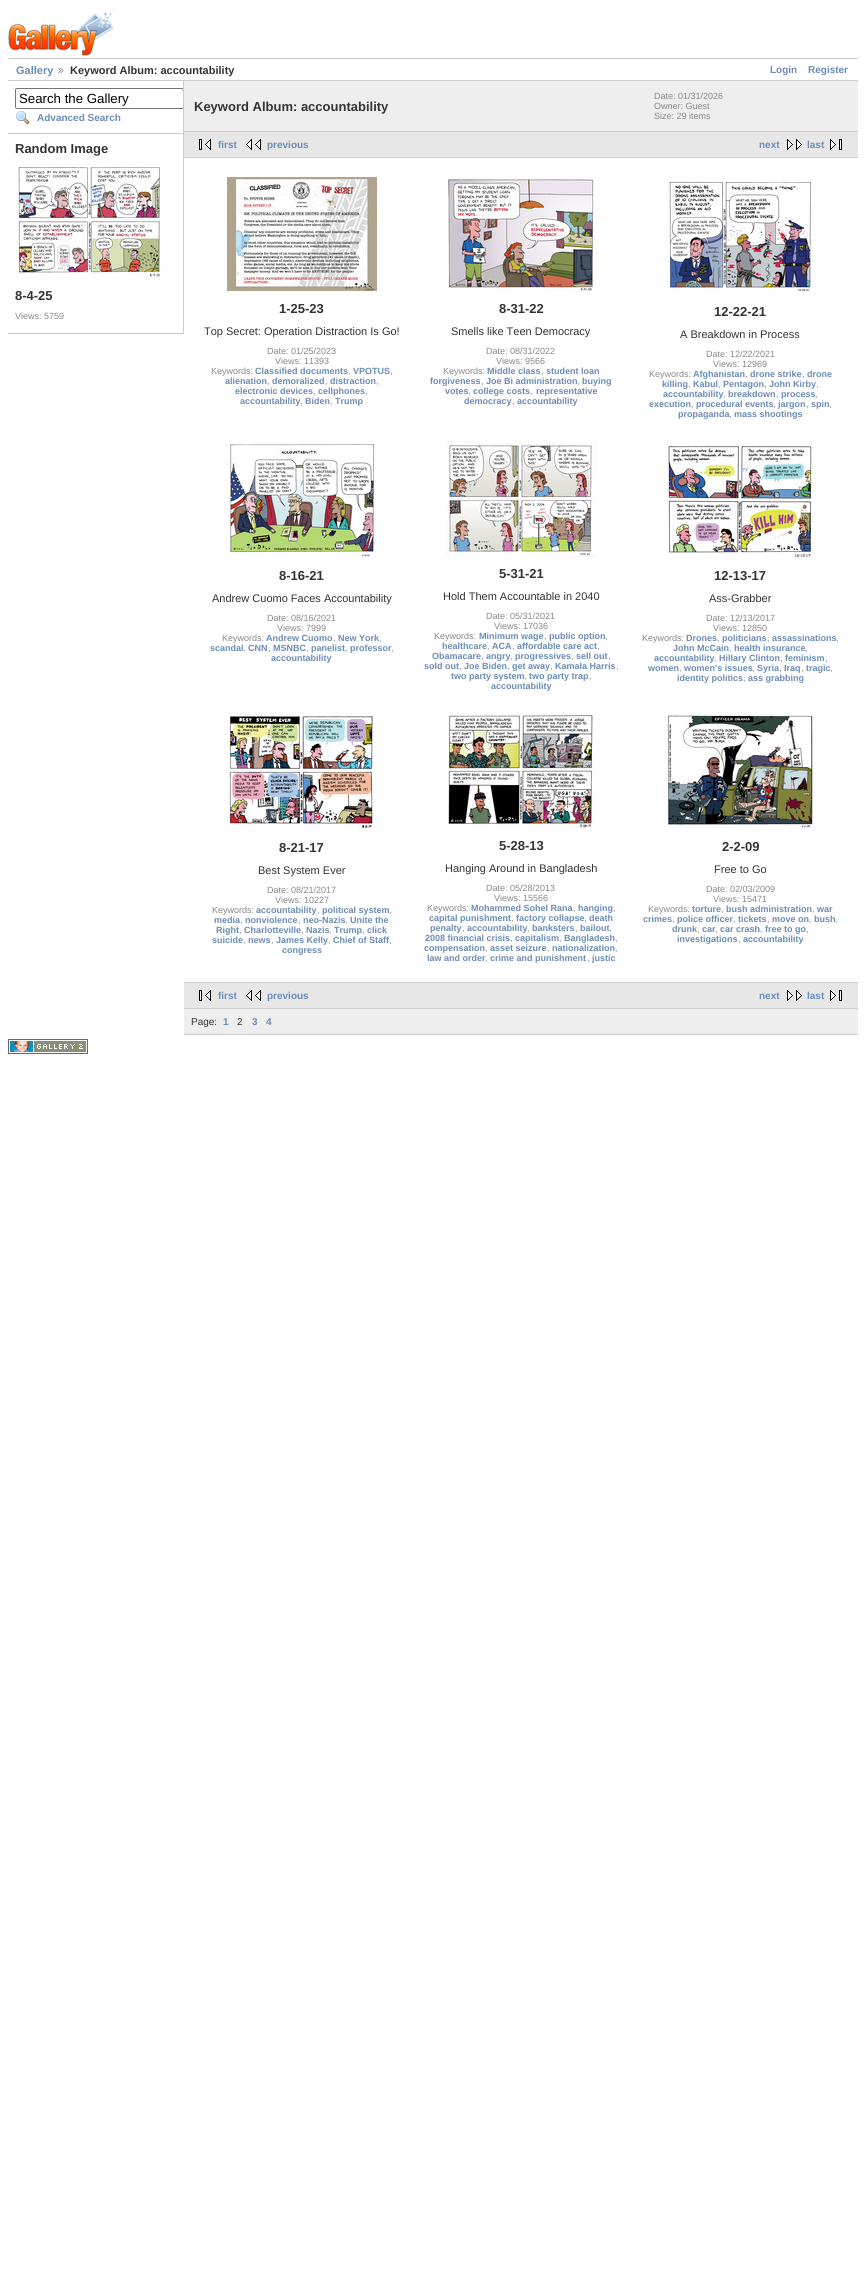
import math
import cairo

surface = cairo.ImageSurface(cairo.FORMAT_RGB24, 866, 2273)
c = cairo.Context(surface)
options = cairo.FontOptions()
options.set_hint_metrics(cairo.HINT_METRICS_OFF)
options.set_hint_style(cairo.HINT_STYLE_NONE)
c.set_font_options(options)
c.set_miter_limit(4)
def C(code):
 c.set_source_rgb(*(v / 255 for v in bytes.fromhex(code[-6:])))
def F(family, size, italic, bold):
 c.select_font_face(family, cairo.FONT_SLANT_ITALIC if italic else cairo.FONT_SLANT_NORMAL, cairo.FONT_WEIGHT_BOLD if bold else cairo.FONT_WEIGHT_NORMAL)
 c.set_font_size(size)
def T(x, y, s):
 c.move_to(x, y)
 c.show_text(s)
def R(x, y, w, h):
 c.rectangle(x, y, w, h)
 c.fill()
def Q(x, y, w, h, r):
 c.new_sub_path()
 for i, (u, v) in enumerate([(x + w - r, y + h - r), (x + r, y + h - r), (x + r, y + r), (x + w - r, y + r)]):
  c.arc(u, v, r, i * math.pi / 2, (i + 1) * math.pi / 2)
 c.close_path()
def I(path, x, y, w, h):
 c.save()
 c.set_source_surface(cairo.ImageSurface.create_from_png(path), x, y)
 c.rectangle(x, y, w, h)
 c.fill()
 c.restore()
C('ffffff')
c.paint()
I('1.png',8,8,107,48)
C('cccccc')
R(8,58,850,1)
R(8,80,850,1)
F('Liberation Sans',11,0,1)
C('6b8cb7')
T(16,74,'Gallery')
I('2.png',58,68,6,5)
C('333333')
T(70,74,'Keyword Album: accountability')
F('Liberation Sans',10,0,1)
C('6b8cb7')
T(770,73,'Login')
T(808,73,'Register')
C('cccccc')
R(183,81,1,253)
R(8,133,175,1)
c.save()
c.rectangle(8,81,175,253)
c.clip()
Q(15.5,88.5,168,20,1.5)
C('767676')
c.set_line_width(1)
c.stroke()
c.restore()
F('Liberation Sans',13.25,0,0)
C('000000')
T(19,103,'Search the Gallery')
I('3.png',16,111,13,14)
F('Liberation Sans',10,0,1)
C('6b8cb7')
T(37,121,'Advanced Search')
C('cccccc')
R(8,333,175,1)
F('Liberation Sans',13,0,1)
C('333333')
T(15,153,'Random Image')
I('4.png',15,165,147,114)
T(15,300,'8-4-25')
F('Liberation Sans',9,0,0)
C('888888')
T(15,319,'Views: 5759')
C('eeeeee')
R(184,81,674,50)
C('cccccc')
R(184,131,674,1)
F('Liberation Sans',13,0,1)
C('333333')
T(194,111,'Keyword Album: accountability')
F('Liberation Sans',9,0,0)
C('888888')
T(654,99,'Date: 01/31/2026')
T(654,109,'Owner: Guest')
T(654,119,'Size: 29 items')
C('e7e7e7')
R(184,132,674,25)
C('cccccc')
R(184,157,674,1)
I('5.png',199,139,12,11)
F('Liberation Sans',10,0,1)
C('6b8cb7')
T(218,148,'first')
I('6.png',246,139,15,11)
T(267,148,'previous')
T(759,148,'next')
I('7.png',787,139,15,11)
T(807,148,'last')
I('8.png',830,139,12,11)
C('cccccc')
R(184,982,674,1)
I('9.png',227,177,150,114)
F('Liberation Sans',13,0,1)
C('333333')
T(279,313,'1-25-23')
F('Liberation Sans',11,0,0)
T(204,335,'Top Secret: Operation Distraction Is Go!')
F('Liberation Sans',9,0,0)
C('888888')
T(267,354,'Date: 01/25/2023')
T(275,364,'Views: 11393')
T(211,374,'Keywords:')
F('Liberation Sans',9,0,1)
C('6b8cb7')
T(255,374,'Classified documents')
F('Liberation Sans',9,0,0)
C('888888')
T(348,374,',')
F('Liberation Sans',9,0,1)
C('6b8cb7')
T(353,374,'VPOTUS')
F('Liberation Sans',9,0,0)
C('888888')
T(390,374,',')
F('Liberation Sans',9,0,1)
C('6b8cb7')
T(225,384,'alienation')
F('Liberation Sans',9,0,0)
C('888888')
T(267,384,',')
F('Liberation Sans',9,0,1)
C('6b8cb7')
T(272,384,'demoralized')
F('Liberation Sans',9,0,0)
C('888888')
T(325,384,',')
F('Liberation Sans',9,0,1)
C('6b8cb7')
T(330,384,'distraction')
F('Liberation Sans',9,0,0)
C('888888')
T(376,384,',')
F('Liberation Sans',9,0,1)
C('6b8cb7')
T(235,394,'electronic devices')
F('Liberation Sans',9,0,0)
C('888888')
T(313,394,',')
F('Liberation Sans',9,0,1)
C('6b8cb7')
T(318,394,'cellphones')
F('Liberation Sans',9,0,0)
C('888888')
T(365,394,',')
F('Liberation Sans',9,0,1)
C('6b8cb7')
T(240,404,'accountability')
F('Liberation Sans',9,0,0)
C('888888')
T(300,404,',')
F('Liberation Sans',9,0,1)
C('6b8cb7')
T(305,404,'Biden')
F('Liberation Sans',9,0,0)
C('888888')
T(330,404,',')
F('Liberation Sans',9,0,1)
C('6b8cb7')
T(335,404,'Trump')
I('10.png',446,177,150,114)
F('Liberation Sans',13,0,1)
C('333333')
T(499,313,'8-31-22')
F('Liberation Sans',11,0,0)
T(451,335,'Smells like Teen Democracy')
F('Liberation Sans',9,0,0)
C('888888')
T(486,354,'Date: 08/31/2022')
T(496,364,'Views: 9566')
T(443,374,'Keywords:')
F('Liberation Sans',9,0,1)
C('6b8cb7')
T(487,374,'Middle class')
F('Liberation Sans',9,0,0)
C('888888')
T(541,374,',')
F('Liberation Sans',9,0,1)
C('6b8cb7')
T(546,374,'student loan')
T(430,384,'forgiveness')
F('Liberation Sans',9,0,0)
C('888888')
T(481,384,',')
F('Liberation Sans',9,0,1)
C('6b8cb7')
T(486,384,'Joe Bi administration')
F('Liberation Sans',9,0,0)
C('888888')
T(577,384,',')
F('Liberation Sans',9,0,1)
C('6b8cb7')
T(582,384,'buying')
T(445,394,'votes')
F('Liberation Sans',9,0,0)
C('888888')
T(468,394,',')
F('Liberation Sans',9,0,1)
C('6b8cb7')
T(473,394,'college costs')
F('Liberation Sans',9,0,0)
C('888888')
T(530,394,',')
F('Liberation Sans',9,0,1)
C('6b8cb7')
T(536,394,'representative')
T(464,404,'democracy')
F('Liberation Sans',9,0,0)
C('888888')
T(512,404,',')
F('Liberation Sans',9,0,1)
C('6b8cb7')
T(517,404,'accountability')
I('11.png',665,180,150,112)
F('Liberation Sans',13,0,1)
C('333333')
T(714,316,'12-22-21')
F('Liberation Sans',11,0,0)
T(680,338,'A Breakdown in Process')
F('Liberation Sans',9,0,0)
C('888888')
T(706,357,'Date: 12/22/2021')
T(713,367,'Views: 12969')
T(649,377,'Keywords:')
F('Liberation Sans',9,0,1)
C('6b8cb7')
T(693,377,'Afghanistan')
F('Liberation Sans',9,0,0)
C('888888')
T(745,377,',')
F('Liberation Sans',9,0,1)
C('6b8cb7')
T(750,377,'drone strike')
F('Liberation Sans',9,0,0)
C('888888')
T(802,377,',')
F('Liberation Sans',9,0,1)
C('6b8cb7')
T(807,377,'drone')
T(662,387,'killing')
F('Liberation Sans',9,0,0)
C('888888')
T(688,387,',')
F('Liberation Sans',9,0,1)
C('6b8cb7')
T(693,387,'Kabul')
F('Liberation Sans',9,0,0)
C('888888')
T(718,387,',')
F('Liberation Sans',9,0,1)
C('6b8cb7')
T(723,387,'Pentagon')
F('Liberation Sans',9,0,0)
C('888888')
T(764,387,',')
F('Liberation Sans',9,0,1)
C('6b8cb7')
T(769,387,'John Kirby')
F('Liberation Sans',9,0,0)
C('888888')
T(816,387,',')
F('Liberation Sans',9,0,1)
C('6b8cb7')
T(663,397,'accountability')
F('Liberation Sans',9,0,0)
C('888888')
T(723,397,',')
F('Liberation Sans',9,0,1)
C('6b8cb7')
T(728,397,'breakdown')
F('Liberation Sans',9,0,0)
C('888888')
T(776,397,',')
F('Liberation Sans',9,0,1)
C('6b8cb7')
T(781,397,'process')
F('Liberation Sans',9,0,0)
C('888888')
T(815,397,',')
F('Liberation Sans',9,0,1)
C('6b8cb7')
T(649,407,'execution')
F('Liberation Sans',9,0,0)
C('888888')
T(691,407,',')
F('Liberation Sans',9,0,1)
C('6b8cb7')
T(696,407,'procedural events')
F('Liberation Sans',9,0,0)
C('888888')
T(773,407,',')
F('Liberation Sans',9,0,1)
C('6b8cb7')
T(778,407,'jargon')
F('Liberation Sans',9,0,0)
C('888888')
T(806,407,',')
F('Liberation Sans',9,0,1)
C('6b8cb7')
T(811,407,'spin')
F('Liberation Sans',9,0,0)
C('888888')
T(829,407,',')
F('Liberation Sans',9,0,1)
C('6b8cb7')
T(678,417,'propaganda')
F('Liberation Sans',9,0,0)
C('888888')
T(729,417,',')
F('Liberation Sans',9,0,1)
C('6b8cb7')
T(734,417,'mass shootings')
I('12.png',227,442,150,117)
F('Liberation Sans',13,0,1)
C('333333')
T(279,580,'8-16-21')
F('Liberation Sans',11,0,0)
T(212,602,'Andrew Cuomo Faces Accountability')
F('Liberation Sans',9,0,0)
C('888888')
T(267,621,'Date: 08/16/2021')
T(277,631,'Views: 7999')
T(222,641,'Keywords:')
F('Liberation Sans',9,0,1)
C('6b8cb7')
T(266,641,'Andrew Cuomo')
F('Liberation Sans',9,0,0)
C('888888')
T(333,641,',')
F('Liberation Sans',9,0,1)
C('6b8cb7')
T(338,641,'New York')
F('Liberation Sans',9,0,0)
C('888888')
T(379,641,',')
F('Liberation Sans',9,0,1)
C('6b8cb7')
T(210,651,'scandal')
F('Liberation Sans',9,0,0)
C('888888')
T(243,651,',')
F('Liberation Sans',9,0,1)
C('6b8cb7')
T(248,651,'CNN')
F('Liberation Sans',9,0,0)
C('888888')
T(268,651,',')
F('Liberation Sans',9,0,1)
C('6b8cb7')
T(273,651,'MSNBC')
F('Liberation Sans',9,0,0)
C('888888')
T(306,651,',')
F('Liberation Sans',9,0,1)
C('6b8cb7')
T(311,651,'panelist')
F('Liberation Sans',9,0,0)
C('888888')
T(345,651,',')
F('Liberation Sans',9,0,1)
C('6b8cb7')
T(350,651,'professor')
F('Liberation Sans',9,0,0)
C('888888')
T(391,651,',')
F('Liberation Sans',9,0,1)
C('6b8cb7')
T(271,661,'accountability')
I('13.png',446,441,150,116)
F('Liberation Sans',13,0,1)
C('333333')
T(499,578,'5-31-21')
F('Liberation Sans',11,0,0)
T(443,600,'Hold Them Accountable in 2040')
F('Liberation Sans',9,0,0)
C('888888')
T(486,619,'Date: 05/31/2021')
T(494,629,'Views: 17036')
T(434,639,'Keywords:')
F('Liberation Sans',9,0,1)
C('6b8cb7')
T(479,639,'Minimum wage')
F('Liberation Sans',9,0,0)
C('888888')
T(544,639,',')
F('Liberation Sans',9,0,1)
C('6b8cb7')
T(549,639,'public option')
F('Liberation Sans',9,0,0)
C('888888')
T(605,639,',')
F('Liberation Sans',9,0,1)
C('6b8cb7')
T(442,649,'healthcare')
F('Liberation Sans',9,0,0)
C('888888')
T(487,649,',')
F('Liberation Sans',9,0,1)
C('6b8cb7')
T(492,649,'ACA')
F('Liberation Sans',9,0,0)
C('888888')
T(512,649,',')
F('Liberation Sans',9,0,1)
C('6b8cb7')
T(517,649,'affordable care act')
F('Liberation Sans',9,0,0)
C('888888')
T(597,649,',')
F('Liberation Sans',9,0,1)
C('6b8cb7')
T(432,659,'Obamacare')
F('Liberation Sans',9,0,0)
C('888888')
T(481,659,',')
F('Liberation Sans',9,0,1)
C('6b8cb7')
T(486,659,'angry')
F('Liberation Sans',9,0,0)
C('888888')
T(510,659,',')
F('Liberation Sans',9,0,1)
C('6b8cb7')
T(515,659,'progressives')
F('Liberation Sans',9,0,0)
C('888888')
T(571,659,',')
F('Liberation Sans',9,0,1)
C('6b8cb7')
T(576,659,'sell out')
F('Liberation Sans',9,0,0)
C('888888')
T(608,659,',')
F('Liberation Sans',9,0,1)
C('6b8cb7')
T(424,669,'sold out')
F('Liberation Sans',9,0,0)
C('888888')
T(459,669,',')
F('Liberation Sans',9,0,1)
C('6b8cb7')
T(464,669,'Joe Biden')
F('Liberation Sans',9,0,0)
C('888888')
T(507,669,',')
F('Liberation Sans',9,0,1)
C('6b8cb7')
T(512,669,'get away')
F('Liberation Sans',9,0,0)
C('888888')
T(550,669,',')
F('Liberation Sans',9,0,1)
C('6b8cb7')
T(555,669,'Kamala Harris')
F('Liberation Sans',9,0,0)
C('888888')
T(616,669,',')
F('Liberation Sans',9,0,1)
C('6b8cb7')
T(451,679,'two party system')
F('Liberation Sans',9,0,0)
C('888888')
T(524,679,',')
F('Liberation Sans',9,0,1)
C('6b8cb7')
T(529,679,'two party trap')
F('Liberation Sans',9,0,0)
C('888888')
T(589,679,',')
F('Liberation Sans',9,0,1)
C('6b8cb7')
T(491,689,'accountability')
I('14.png',665,443,150,116)
F('Liberation Sans',13,0,1)
C('333333')
T(714,580,'12-13-17')
F('Liberation Sans',11,0,0)
T(709,602,'Ass-Grabber')
F('Liberation Sans',9,0,0)
C('888888')
T(706,621,'Date: 12/13/2017')
T(713,631,'Views: 12850')
T(642,641,'Keywords:')
F('Liberation Sans',9,0,1)
C('6b8cb7')
T(686,641,'Drones')
F('Liberation Sans',9,0,0)
C('888888')
T(717,641,',')
F('Liberation Sans',9,0,1)
C('6b8cb7')
T(722,641,'politicians')
F('Liberation Sans',9,0,0)
C('888888')
T(767,641,',')
F('Liberation Sans',9,0,1)
C('6b8cb7')
T(772,641,'assassinations')
F('Liberation Sans',9,0,0)
C('888888')
T(836,641,',')
F('Liberation Sans',9,0,1)
C('6b8cb7')
T(673,651,'John McCain')
F('Liberation Sans',9,0,0)
C('888888')
T(729,651,',')
F('Liberation Sans',9,0,1)
C('6b8cb7')
T(734,651,'health insurance')
F('Liberation Sans',9,0,0)
C('888888')
T(805,651,',')
F('Liberation Sans',9,0,1)
C('6b8cb7')
T(654,661,'accountability')
F('Liberation Sans',9,0,0)
C('888888')
T(714,661,',')
F('Liberation Sans',9,0,1)
C('6b8cb7')
T(719,661,'Hillary Clinton')
F('Liberation Sans',9,0,0)
C('888888')
T(780,661,',')
F('Liberation Sans',9,0,1)
C('6b8cb7')
T(785,661,'feminism')
F('Liberation Sans',9,0,0)
C('888888')
T(825,661,',')
F('Liberation Sans',9,0,1)
C('6b8cb7')
T(648,671,'women')
F('Liberation Sans',9,0,0)
C('888888')
T(679,671,',')
F('Liberation Sans',9,0,1)
C('6b8cb7')
T(684,671,'women\'s issues')
F('Liberation Sans',9,0,0)
C('888888')
T(752,671,',')
F('Liberation Sans',9,0,1)
C('6b8cb7')
T(757,671,'Syria')
F('Liberation Sans',9,0,0)
C('888888')
T(779,671,',')
F('Liberation Sans',9,0,1)
C('6b8cb7')
T(784,671,'Iraq')
F('Liberation Sans',9,0,0)
C('888888')
T(801,671,',')
F('Liberation Sans',9,0,1)
C('6b8cb7')
T(806,671,'tragic')
F('Liberation Sans',9,0,0)
C('888888')
T(830,671,',')
F('Liberation Sans',9,0,1)
C('6b8cb7')
T(677,681,'identity politics')
F('Liberation Sans',9,0,0)
C('888888')
T(743,681,',')
F('Liberation Sans',9,0,1)
C('6b8cb7')
T(748,681,'ass grabbing')
I('15.png',227,713,150,115)
F('Liberation Sans',13,0,1)
C('333333')
T(279,852,'8-21-17')
F('Liberation Sans',11,0,0)
T(258,874,'Best System Ever')
F('Liberation Sans',9,0,0)
C('888888')
T(267,893,'Date: 08/21/2017')
T(275,903,'Views: 10227')
T(212,913,'Keywords:')
F('Liberation Sans',9,0,1)
C('6b8cb7')
T(256,913,'accountability')
F('Liberation Sans',9,0,0)
C('888888')
T(317,913,',')
F('Liberation Sans',9,0,1)
C('6b8cb7')
T(322,913,'political system')
F('Liberation Sans',9,0,0)
C('888888')
T(389,913,',')
F('Liberation Sans',9,0,1)
C('6b8cb7')
T(214,923,'media')
F('Liberation Sans',9,0,0)
C('888888')
T(240,923,',')
F('Liberation Sans',9,0,1)
C('6b8cb7')
T(245,923,'nonviolence')
F('Liberation Sans',9,0,0)
C('888888')
T(298,923,',')
F('Liberation Sans',9,0,1)
C('6b8cb7')
T(303,923,'neo-Nazis')
F('Liberation Sans',9,0,0)
C('888888')
T(345,923,',')
F('Liberation Sans',9,0,1)
C('6b8cb7')
T(350,923,'Unite the')
T(216,933,'Right')
F('Liberation Sans',9,0,0)
C('888888')
T(239,933,',')
F('Liberation Sans',9,0,1)
C('6b8cb7')
T(244,933,'Charlotteville')
F('Liberation Sans',9,0,0)
C('888888')
T(301,933,',')
F('Liberation Sans',9,0,1)
C('6b8cb7')
T(306,933,'Nazis')
F('Liberation Sans',9,0,0)
C('888888')
T(329,933,',')
F('Liberation Sans',9,0,1)
C('6b8cb7')
T(334,933,'Trump')
F('Liberation Sans',9,0,0)
C('888888')
T(362,933,',')
F('Liberation Sans',9,0,1)
C('6b8cb7')
T(367,933,'click')
T(212,943,'suicide')
F('Liberation Sans',9,0,0)
C('888888')
T(243,943,',')
F('Liberation Sans',9,0,1)
C('6b8cb7')
T(248,943,'news')
F('Liberation Sans',9,0,0)
C('888888')
T(271,943,',')
F('Liberation Sans',9,0,1)
C('6b8cb7')
T(276,943,'James Kelly')
F('Liberation Sans',9,0,0)
C('888888')
T(328,943,',')
F('Liberation Sans',9,0,1)
C('6b8cb7')
T(333,943,'Chief of Staff')
F('Liberation Sans',9,0,0)
C('888888')
T(389,943,',')
F('Liberation Sans',9,0,1)
C('6b8cb7')
T(282,953,'congress')
I('16.png',446,713,150,115)
F('Liberation Sans',13,0,1)
C('333333')
T(499,850,'5-28-13')
F('Liberation Sans',11,0,0)
T(445,872,'Hanging Around in Bangladesh')
F('Liberation Sans',9,0,0)
C('888888')
T(486,891,'Date: 05/28/2013')
T(494,901,'Views: 15566')
T(427,911,'Keywords:')
F('Liberation Sans',9,0,1)
C('6b8cb7')
T(471,911,'Mohammed Sohel Rana')
F('Liberation Sans',9,0,0)
C('888888')
T(573,911,',')
F('Liberation Sans',9,0,1)
C('6b8cb7')
T(578,911,'hanging')
F('Liberation Sans',9,0,0)
C('888888')
T(613,911,',')
F('Liberation Sans',9,0,1)
C('6b8cb7')
T(429,921,'capital punishment')
F('Liberation Sans',9,0,0)
C('888888')
T(511,921,',')
F('Liberation Sans',9,0,1)
C('6b8cb7')
T(516,921,'factory collapse')
F('Liberation Sans',9,0,0)
C('888888')
T(584,921,',')
F('Liberation Sans',9,0,1)
C('6b8cb7')
T(589,921,'death')
T(430,931,'penalty')
F('Liberation Sans',9,0,0)
C('888888')
T(462,931,',')
F('Liberation Sans',9,0,1)
C('6b8cb7')
T(467,931,'accountability')
F('Liberation Sans',9,0,0)
C('888888')
T(527,931,',')
F('Liberation Sans',9,0,1)
C('6b8cb7')
T(532,931,'banksters')
F('Liberation Sans',9,0,0)
C('888888')
T(575,931,',')
F('Liberation Sans',9,0,1)
C('6b8cb7')
T(580,931,'bailout')
F('Liberation Sans',9,0,0)
C('888888')
T(609,931,',')
F('Liberation Sans',9,0,1)
C('6b8cb7')
T(425,941,'2008 financial crisis')
F('Liberation Sans',9,0,0)
C('888888')
T(510,941,',')
F('Liberation Sans',9,0,1)
C('6b8cb7')
T(515,941,'capitalism')
F('Liberation Sans',9,0,0)
C('888888')
T(559,941,',')
F('Liberation Sans',9,0,1)
C('6b8cb7')
T(564,941,'Bangladesh')
F('Liberation Sans',9,0,0)
C('888888')
T(615,941,',')
F('Liberation Sans',9,0,1)
C('6b8cb7')
T(424,951,'compensation')
F('Liberation Sans',9,0,0)
C('888888')
T(485,951,',')
F('Liberation Sans',9,0,1)
C('6b8cb7')
T(490,951,'asset seizure')
F('Liberation Sans',9,0,0)
C('888888')
T(547,951,',')
F('Liberation Sans',9,0,1)
C('6b8cb7')
T(552,951,'nationalization')
F('Liberation Sans',9,0,0)
C('888888')
T(615,951,',')
F('Liberation Sans',9,0,1)
C('6b8cb7')
T(427,961,'law and order')
F('Liberation Sans',9,0,0)
C('888888')
T(485,961,',')
F('Liberation Sans',9,0,1)
C('6b8cb7')
T(490,961,'crime and punishment')
F('Liberation Sans',9,0,0)
C('888888')
T(587,961,',')
F('Liberation Sans',9,0,1)
C('6b8cb7')
T(592,961,'justic')
I('17.png',665,713,150,116)
F('Liberation Sans',13,0,1)
C('333333')
T(722,851,'2-2-09')
F('Liberation Sans',11,0,0)
T(714,873,'Free to Go')
F('Liberation Sans',9,0,0)
C('888888')
T(706,892,'Date: 02/03/2009')
T(713,902,'Views: 15471')
T(648,912,'Keywords:')
F('Liberation Sans',9,0,1)
C('6b8cb7')
T(692,912,'torture')
F('Liberation Sans',9,0,0)
C('888888')
T(721,912,',')
F('Liberation Sans',9,0,1)
C('6b8cb7')
T(726,912,'bush administration')
F('Liberation Sans',9,0,0)
C('888888')
T(812,912,',')
F('Liberation Sans',9,0,1)
C('6b8cb7')
T(817,912,'war')
T(643,922,'crimes')
F('Liberation Sans',9,0,0)
C('888888')
T(672,922,',')
F('Liberation Sans',9,0,1)
C('6b8cb7')
T(677,922,'police officer')
F('Liberation Sans',9,0,0)
C('888888')
T(733,922,',')
F('Liberation Sans',9,0,1)
C('6b8cb7')
T(738,922,'tickets')
F('Liberation Sans',9,0,0)
C('888888')
T(767,922,',')
F('Liberation Sans',9,0,1)
C('6b8cb7')
T(772,922,'move on')
F('Liberation Sans',9,0,0)
C('888888')
T(809,922,',')
F('Liberation Sans',9,0,1)
C('6b8cb7')
T(814,922,'bush')
F('Liberation Sans',9,0,0)
C('888888')
T(835,922,',')
F('Liberation Sans',9,0,1)
C('6b8cb7')
T(672,932,'drunk')
F('Liberation Sans',9,0,0)
C('888888')
T(697,932,',')
F('Liberation Sans',9,0,1)
C('6b8cb7')
T(702,932,'car')
F('Liberation Sans',9,0,0)
C('888888')
T(715,932,',')
F('Liberation Sans',9,0,1)
C('6b8cb7')
T(720,932,'car crash')
F('Liberation Sans',9,0,0)
C('888888')
T(760,932,',')
F('Liberation Sans',9,0,1)
C('6b8cb7')
T(765,932,'free to go')
F('Liberation Sans',9,0,0)
C('888888')
T(806,932,',')
F('Liberation Sans',9,0,1)
C('6b8cb7')
T(677,942,'investigations')
F('Liberation Sans',9,0,0)
C('888888')
T(738,942,',')
F('Liberation Sans',9,0,1)
C('6b8cb7')
T(743,942,'accountability')
C('e7e7e7')
R(184,983,674,25)
C('cccccc')
R(184,1008,674,1)
I('5.png',199,990,12,11)
F('Liberation Sans',10,0,1)
C('6b8cb7')
T(218,999,'first')
I('6.png',246,990,15,11)
T(267,999,'previous')
T(759,999,'next')
I('7.png',787,990,15,11)
T(807,999,'last')
I('8.png',830,990,12,11)
C('eeeeee')
R(184,1009,674,25)
C('cccccc')
R(184,1034,674,1)
F('Liberation Sans',10,0,0)
C('333333')
T(191,1025,'Page:')
F('Liberation Sans',10,0,1)
C('6b8cb7')
T(223,1025,'1')
F('Liberation Sans',10,0,0)
C('333333')
T(237,1025,'2')
F('Liberation Sans',10,0,1)
C('6b8cb7')
T(252,1025,'3')
T(266,1025,'4')
I('18.png',8,1039,80,15)
surface.write_to_png('o.png')
